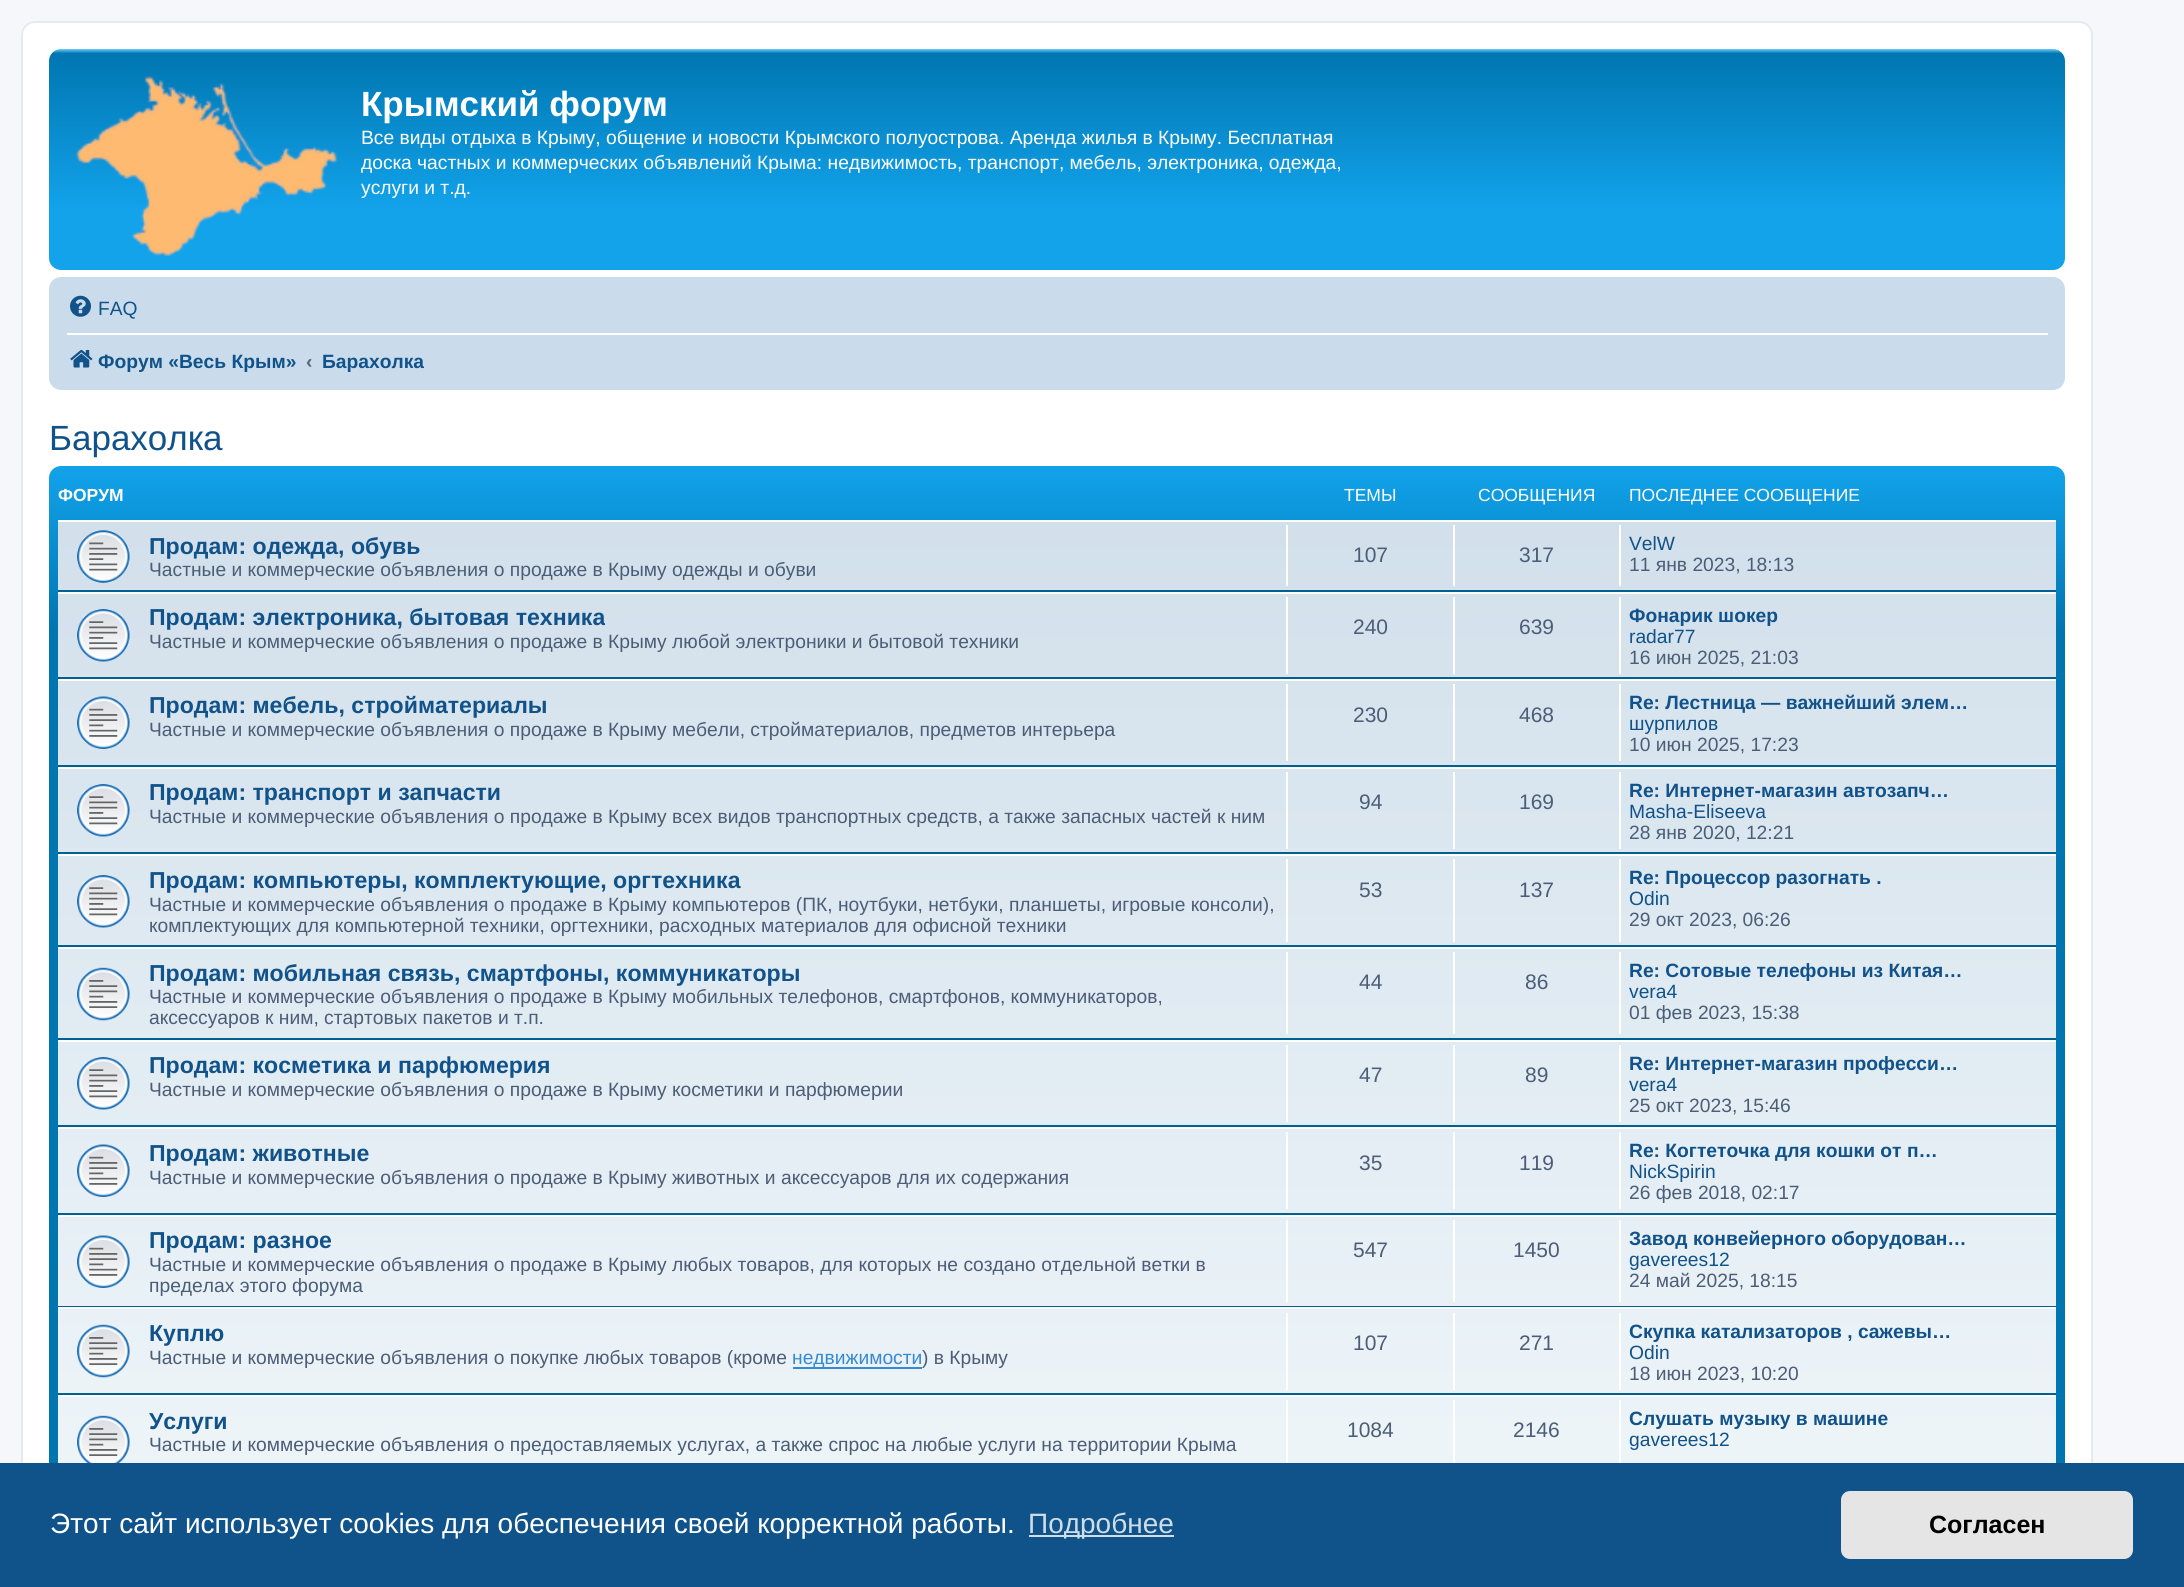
import math
import cairo

surface = cairo.ImageSurface(cairo.FORMAT_RGB24, 2184, 1587)
c = cairo.Context(surface)
options = cairo.FontOptions()
options.set_hint_metrics(cairo.HINT_METRICS_OFF)
options.set_hint_style(cairo.HINT_STYLE_NONE)
c.set_font_options(options)
c.set_miter_limit(4)
def C(code):
 c.set_source_rgb(*(v / 255 for v in bytes.fromhex(code[-6:])))
def F(family, size, italic, bold):
 c.select_font_face(family, cairo.FONT_SLANT_ITALIC if italic else cairo.FONT_SLANT_NORMAL, cairo.FONT_WEIGHT_BOLD if bold else cairo.FONT_WEIGHT_NORMAL)
 c.set_font_size(size)
def T(x, y, s):
 c.move_to(x, y)
 c.show_text(s)
def R(x, y, w, h):
 c.rectangle(x, y, w, h)
 c.fill()
def Q(x, y, w, h, r):
 c.new_sub_path()
 for i, (u, v) in enumerate([(x + w - r, y + h - r), (x + r, y + h - r), (x + r, y + r), (x + w - r, y + r)]):
  c.arc(u, v, r, i * math.pi / 2, (i + 1) * math.pi / 2)
 c.close_path()
def I(path, x, y, w, h):
 c.save()
 c.set_source_surface(cairo.ImageSurface.create_from_png(path), x, y)
 c.rectangle(x, y, w, h)
 c.fill()
 c.restore()
C('f5f7fa')
c.paint()
C('ffffff')
Q(22,22,2070,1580,13)
c.fill_preserve()
C('e6e9ed')
c.stroke()
gradient = cairo.LinearGradient(1057,49,1057,270)
gradient.add_color_stop_rgba(0,0.416,0.808,1,1)
gradient.add_color_stop_rgba(.02,0,0.463,0.694,1)
gradient.add_color_stop_rgba(.73,0.071,0.639,0.922,1)
gradient.add_color_stop_rgba(1,0.071,0.639,0.922,1)
c.set_source(gradient)
Q(49,49,2016,221,12)
c.fill()
I('1.png',75,75,263,182)
F('Liberation Sans',35,0,1)
C('ffffff')
T(361,116,'Крымский форум')
F('Liberation Sans',19.25,0,0)
T(361,144,'Все виды отдыха в Крыму, общение и новости Крымского полуострова. Аренда жилья в Крыму. Бесплатная')
T(361,169,'доска частных и коммерческих объявлений Крыма: недвижимость, транспорт, мебель, электроника, одежда,')
T(361,194,'услуги и т.д.')
C('cadceb')
Q(49,277,2016,113,12)
c.fill()
I('2.png',70,295,21,22)
C('105289')
T(98,315,'FAQ')
C('ffffff')
R(67,333,1981,2)
I('3.png',70,350,23,18)
F('Liberation Sans',19.25,0,1)
C('105289')
T(98,368,'Форум «Весь Крым»')
C('536482')
T(306,368,'‹')
C('105289')
T(322,368,'Барахолка')
F('Liberation Sans',35,0,0)
T(49,450,'Барахолка')
gradient = cairo.LinearGradient(1057,465,1057,1496)
gradient.add_color_stop_rgba(0,0.416,0.808,1,1)
gradient.add_color_stop_rgba(0,0.071,0.639,0.922,1)
gradient.add_color_stop_rgba(.16,0,0.463,0.694,1)
gradient.add_color_stop_rgba(1,0,0.463,0.694,1)
c.set_source(gradient)
Q(49,466,2016,1030,12)
c.fill()
F('Liberation Sans',17.5,0,1)
C('ffffff')
T(58,501,'ФОРУМ')
F('Liberation Sans',17.5,0,0)
T(1344,501,'ТЕМЫ')
T(1478,501,'СООБЩЕНИЯ')
T(1629,501,'ПОСЛЕДНЕЕ СООБЩЕНИЕ')
gradient = cairo.LinearGradient(1057,520,1057,1488)
gradient.add_color_stop_rgba(0,0.824,0.878,0.922,1)
gradient.add_color_stop_rgba(1,0.933,0.961,0.976,1)
c.set_source(gradient)
R(58,522,1998,941)
C('ffffff')
R(58,520,1998,2)
C('00608f')
R(58,590,1998,2)
I('4.png',77,530,53,53)
F('Liberation Sans',23.1,0,1)
C('105289')
T(149,554,'Продам: одежда, обувь')
F('Liberation Sans',19.25,0,0)
C('4c5d77')
T(149,576,'Частные и коммерческие объявления о продаже в Крыму одежды и обуви')
C('ffffff')
R(1286,525,2,61)
F('Liberation Sans',21,0,0)
C('4c5d77')
T(1353,562,'107')
C('ffffff')
R(1453,525,2,61)
C('4c5d77')
T(1519,562,'317')
C('ffffff')
R(1619,525,2,61)
F('Liberation Sans',19.25,0,0)
C('105289')
T(1629,550,'VelW')
C('4c5d77')
T(1629,571,'11 янв 2023, 18:13')
C('ffffff')
R(58,592,1998,2)
C('00608f')
R(58,677,1998,2)
I('5.png',77,609,53,53)
F('Liberation Sans',23.1,0,1)
C('105289')
T(149,625,'Продам: электроника, бытовая техника')
F('Liberation Sans',19.25,0,0)
C('4c5d77')
T(149,648,'Частные и коммерческие объявления о продаже в Крыму любой электроники и бытовой техники')
C('ffffff')
R(1286,597,2,77)
F('Liberation Sans',21,0,0)
C('4c5d77')
T(1353,634,'240')
C('ffffff')
R(1453,597,2,77)
C('4c5d77')
T(1519,634,'639')
C('ffffff')
R(1619,597,2,77)
F('Liberation Sans',19.25,0,1)
C('105289')
T(1629,622,'Фонарик шокер')
F('Liberation Sans',19.25,0,0)
T(1629,643,'radar77')
C('4c5d77')
T(1629,664,'16 июн 2025, 21:03')
C('ffffff')
R(58,679,1998,2)
C('00608f')
R(58,765,1998,2)
I('6.png',77,696,53,53)
F('Liberation Sans',23.1,0,1)
C('105289')
T(149,713,'Продам: мебель, стройматериалы')
F('Liberation Sans',19.25,0,0)
C('4c5d77')
T(149,736,'Частные и коммерческие объявления о продаже в Крыму мебели, стройматериалов, предметов интерьера')
C('ffffff')
R(1286,684,2,77)
F('Liberation Sans',21,0,0)
C('4c5d77')
T(1353,722,'230')
C('ffffff')
R(1453,684,2,77)
C('4c5d77')
T(1519,722,'468')
C('ffffff')
R(1619,684,2,77)
F('Liberation Sans',19.25,0,1)
C('105289')
T(1629,709,'Re: Лестница — важнейший элем…')
F('Liberation Sans',19.25,0,0)
T(1629,730,'шурпилов')
C('4c5d77')
T(1629,751,'10 июн 2025, 17:23')
C('ffffff')
R(58,767,1998,2)
C('00608f')
R(58,852,1998,2)
I('7.png',77,784,53,53)
F('Liberation Sans',23.1,0,1)
C('105289')
T(149,800,'Продам: транспорт и запчасти')
F('Liberation Sans',19.25,0,0)
C('4c5d77')
T(149,823,'Частные и коммерческие объявления о продаже в Крыму всех видов транспортных средств, а также запасных частей к ним')
C('ffffff')
R(1286,772,2,77)
F('Liberation Sans',21,0,0)
C('4c5d77')
T(1359,809,'94')
C('ffffff')
R(1453,772,2,77)
C('4c5d77')
T(1519,809,'169')
C('ffffff')
R(1619,772,2,77)
F('Liberation Sans',19.25,0,1)
C('105289')
T(1629,797,'Re: Интернет-магазин автозапч…')
F('Liberation Sans',19.25,0,0)
T(1629,818,'Masha-Eliseeva')
C('4c5d77')
T(1629,839,'28 янв 2020, 12:21')
C('ffffff')
R(58,854,1998,2)
C('00608f')
R(58,945,1998,2)
I('8.png',77,875,53,53)
F('Liberation Sans',23.1,0,1)
C('105289')
T(149,888,'Продам: компьютеры, комплектующие, оргтехника')
F('Liberation Sans',19.25,0,0)
C('4c5d77')
T(149,911,'Частные и коммерческие объявления о продаже в Крыму компьютеров (ПК, ноутбуки, нетбуки, планшеты, игровые консоли),')
T(149,932,'комплектующих для компьютерной техники, оргтехники, расходных материалов для офисной техники')
C('ffffff')
R(1286,859,2,83)
F('Liberation Sans',21,0,0)
C('4c5d77')
T(1359,897,'53')
C('ffffff')
R(1453,859,2,83)
C('4c5d77')
T(1519,897,'137')
C('ffffff')
R(1619,859,2,83)
F('Liberation Sans',19.25,0,1)
C('105289')
T(1629,884,'Re: Процессор разогнать .')
F('Liberation Sans',19.25,0,0)
T(1629,905,'Odin')
C('4c5d77')
T(1629,926,'29 окт 2023, 06:26')
C('ffffff')
R(58,947,1998,2)
C('00608f')
R(58,1038,1998,2)
I('9.png',77,967,53,54)
F('Liberation Sans',23.1,0,1)
C('105289')
T(149,981,'Продам: мобильная связь, смартфоны, коммуникаторы')
F('Liberation Sans',19.25,0,0)
C('4c5d77')
T(149,1003,'Частные и коммерческие объявления о продаже в Крыму мобильных телефонов, смартфонов, коммуникаторов,')
T(149,1024,'аксессуаров к ним, стартовых пакетов и т.п.')
C('ffffff')
R(1286,952,2,82)
F('Liberation Sans',21,0,0)
C('4c5d77')
T(1359,989,'44')
C('ffffff')
R(1453,952,2,82)
C('4c5d77')
T(1525,989,'86')
C('ffffff')
R(1619,952,2,82)
F('Liberation Sans',19.25,0,1)
C('105289')
T(1629,977,'Re: Сотовые телефоны из Китая…')
F('Liberation Sans',19.25,0,0)
T(1629,998,'vera4')
C('4c5d77')
T(1629,1019,'01 фев 2023, 15:38')
C('ffffff')
R(58,1040,1998,2)
C('00608f')
R(58,1125,1998,2)
I('10.png',77,1057,53,53)
F('Liberation Sans',23.1,0,1)
C('105289')
T(149,1073,'Продам: косметика и парфюмерия')
F('Liberation Sans',19.25,0,0)
C('4c5d77')
T(149,1096,'Частные и коммерческие объявления о продаже в Крыму косметики и парфюмерии')
C('ffffff')
R(1286,1045,2,77)
F('Liberation Sans',21,0,0)
C('4c5d77')
T(1359,1082,'47')
C('ffffff')
R(1453,1045,2,77)
C('4c5d77')
T(1525,1082,'89')
C('ffffff')
R(1619,1045,2,77)
F('Liberation Sans',19.25,0,1)
C('105289')
T(1629,1070,'Re: Интернет-магазин професси…')
F('Liberation Sans',19.25,0,0)
T(1629,1091,'vera4')
C('4c5d77')
T(1629,1112,'25 окт 2023, 15:46')
C('ffffff')
R(58,1127,1998,2)
C('00608f')
R(58,1213,1998,2)
I('11.png',77,1144,53,53)
F('Liberation Sans',23.1,0,1)
C('105289')
T(149,1161,'Продам: животные')
F('Liberation Sans',19.25,0,0)
C('4c5d77')
T(149,1184,'Частные и коммерческие объявления о продаже в Крыму животных и аксессуаров для их содержания')
C('ffffff')
R(1286,1132,2,77)
F('Liberation Sans',21,0,0)
C('4c5d77')
T(1359,1170,'35')
C('ffffff')
R(1453,1132,2,77)
C('4c5d77')
T(1519,1170,'119')
C('ffffff')
R(1619,1132,2,77)
F('Liberation Sans',19.25,0,1)
C('105289')
T(1629,1157,'Re: Когтеточка для кошки от п…')
F('Liberation Sans',19.25,0,0)
T(1629,1178,'NickSpirin')
C('4c5d77')
T(1629,1199,'26 фев 2018, 02:17')
C('ffffff')
R(58,1215,1998,2)
C('00608f')
R(58,1306,1998,1)
I('12.png',77,1235,53,53)
F('Liberation Sans',23.1,0,1)
C('105289')
T(149,1248,'Продам: разное')
F('Liberation Sans',19.25,0,0)
C('4c5d77')
T(149,1271,'Частные и коммерческие объявления о продаже в Крыму любых товаров, для которых не создано отдельной ветки в')
T(149,1292,'пределах этого форума')
C('ffffff')
R(1286,1220,2,82)
F('Liberation Sans',21,0,0)
C('4c5d77')
T(1353,1257,'547')
C('ffffff')
R(1453,1220,2,82)
C('4c5d77')
T(1513,1257,'1450')
C('ffffff')
R(1619,1220,2,82)
F('Liberation Sans',19.25,0,1)
C('105289')
T(1629,1245,'Завод конвейерного оборудован…')
F('Liberation Sans',19.25,0,0)
T(1629,1266,'gaverees12')
C('4c5d77')
T(1629,1287,'24 май 2025, 18:15')
C('ffffff')
R(58,1307,1998,2)
C('00608f')
R(58,1393,1998,2)
I('13.png',77,1324,53,54)
F('Liberation Sans',23.1,0,1)
C('105289')
T(149,1341,'Куплю')
F('Liberation Sans',19.25,0,0)
C('4c5d77')
T(149,1364,'Частные и коммерческие объявления о покупке любых товаров (кроме')
C('368ad2')
R(793,1367,129,2)
T(792,1364,'недвижимости')
C('4c5d77')
T(922,1364,') в Крыму')
C('ffffff')
R(1286,1313,2,77)
F('Liberation Sans',21,0,0)
C('4c5d77')
T(1353,1350,'107')
C('ffffff')
R(1453,1313,2,77)
C('4c5d77')
T(1519,1350,'271')
C('ffffff')
R(1619,1313,2,77)
F('Liberation Sans',19.25,0,1)
C('105289')
T(1629,1338,'Скупка катализаторов , сажевы…')
F('Liberation Sans',19.25,0,0)
T(1629,1359,'Odin')
C('4c5d77')
T(1629,1380,'18 июн 2023, 10:20')
C('ffffff')
R(58,1395,1998,2)
I('14.png',77,1415,53,48)
F('Liberation Sans',23.1,0,1)
C('105289')
T(149,1429,'Услуги')
F('Liberation Sans',19.25,0,0)
C('4c5d77')
T(149,1451,'Частные и коммерческие объявления о предоставляемых услугах, а также спрос на любые услуги на территории Крыма')
C('ffffff')
R(1286,1400,2,63)
F('Liberation Sans',21,0,0)
C('4c5d77')
T(1347,1437,'1084')
C('ffffff')
R(1453,1400,2,63)
C('4c5d77')
T(1513,1437,'2146')
C('ffffff')
R(1619,1400,2,63)
F('Liberation Sans',19.25,0,1)
C('105289')
T(1629,1425,'Слушать музыку в машине')
F('Liberation Sans',19.25,0,0)
T(1629,1446,'gaverees12')
C('0f538a')
R(0,1463,2184,124)
F('Liberation Sans',28,0,0)
C('ffffff')
T(50,1533,'Этот сайт использует cookies для обеспечения своей корректной работы.')
C('cfdde8')
R(1029,1535,145,2)
T(1028,1533,'Подробнее')
C('e5e5e5')
Q(1841,1491,292,68,9)
c.fill()
F('Liberation Sans',25,0,1)
C('000000')
T(1929,1533,'Согласен')
surface.write_to_png('o.png')
